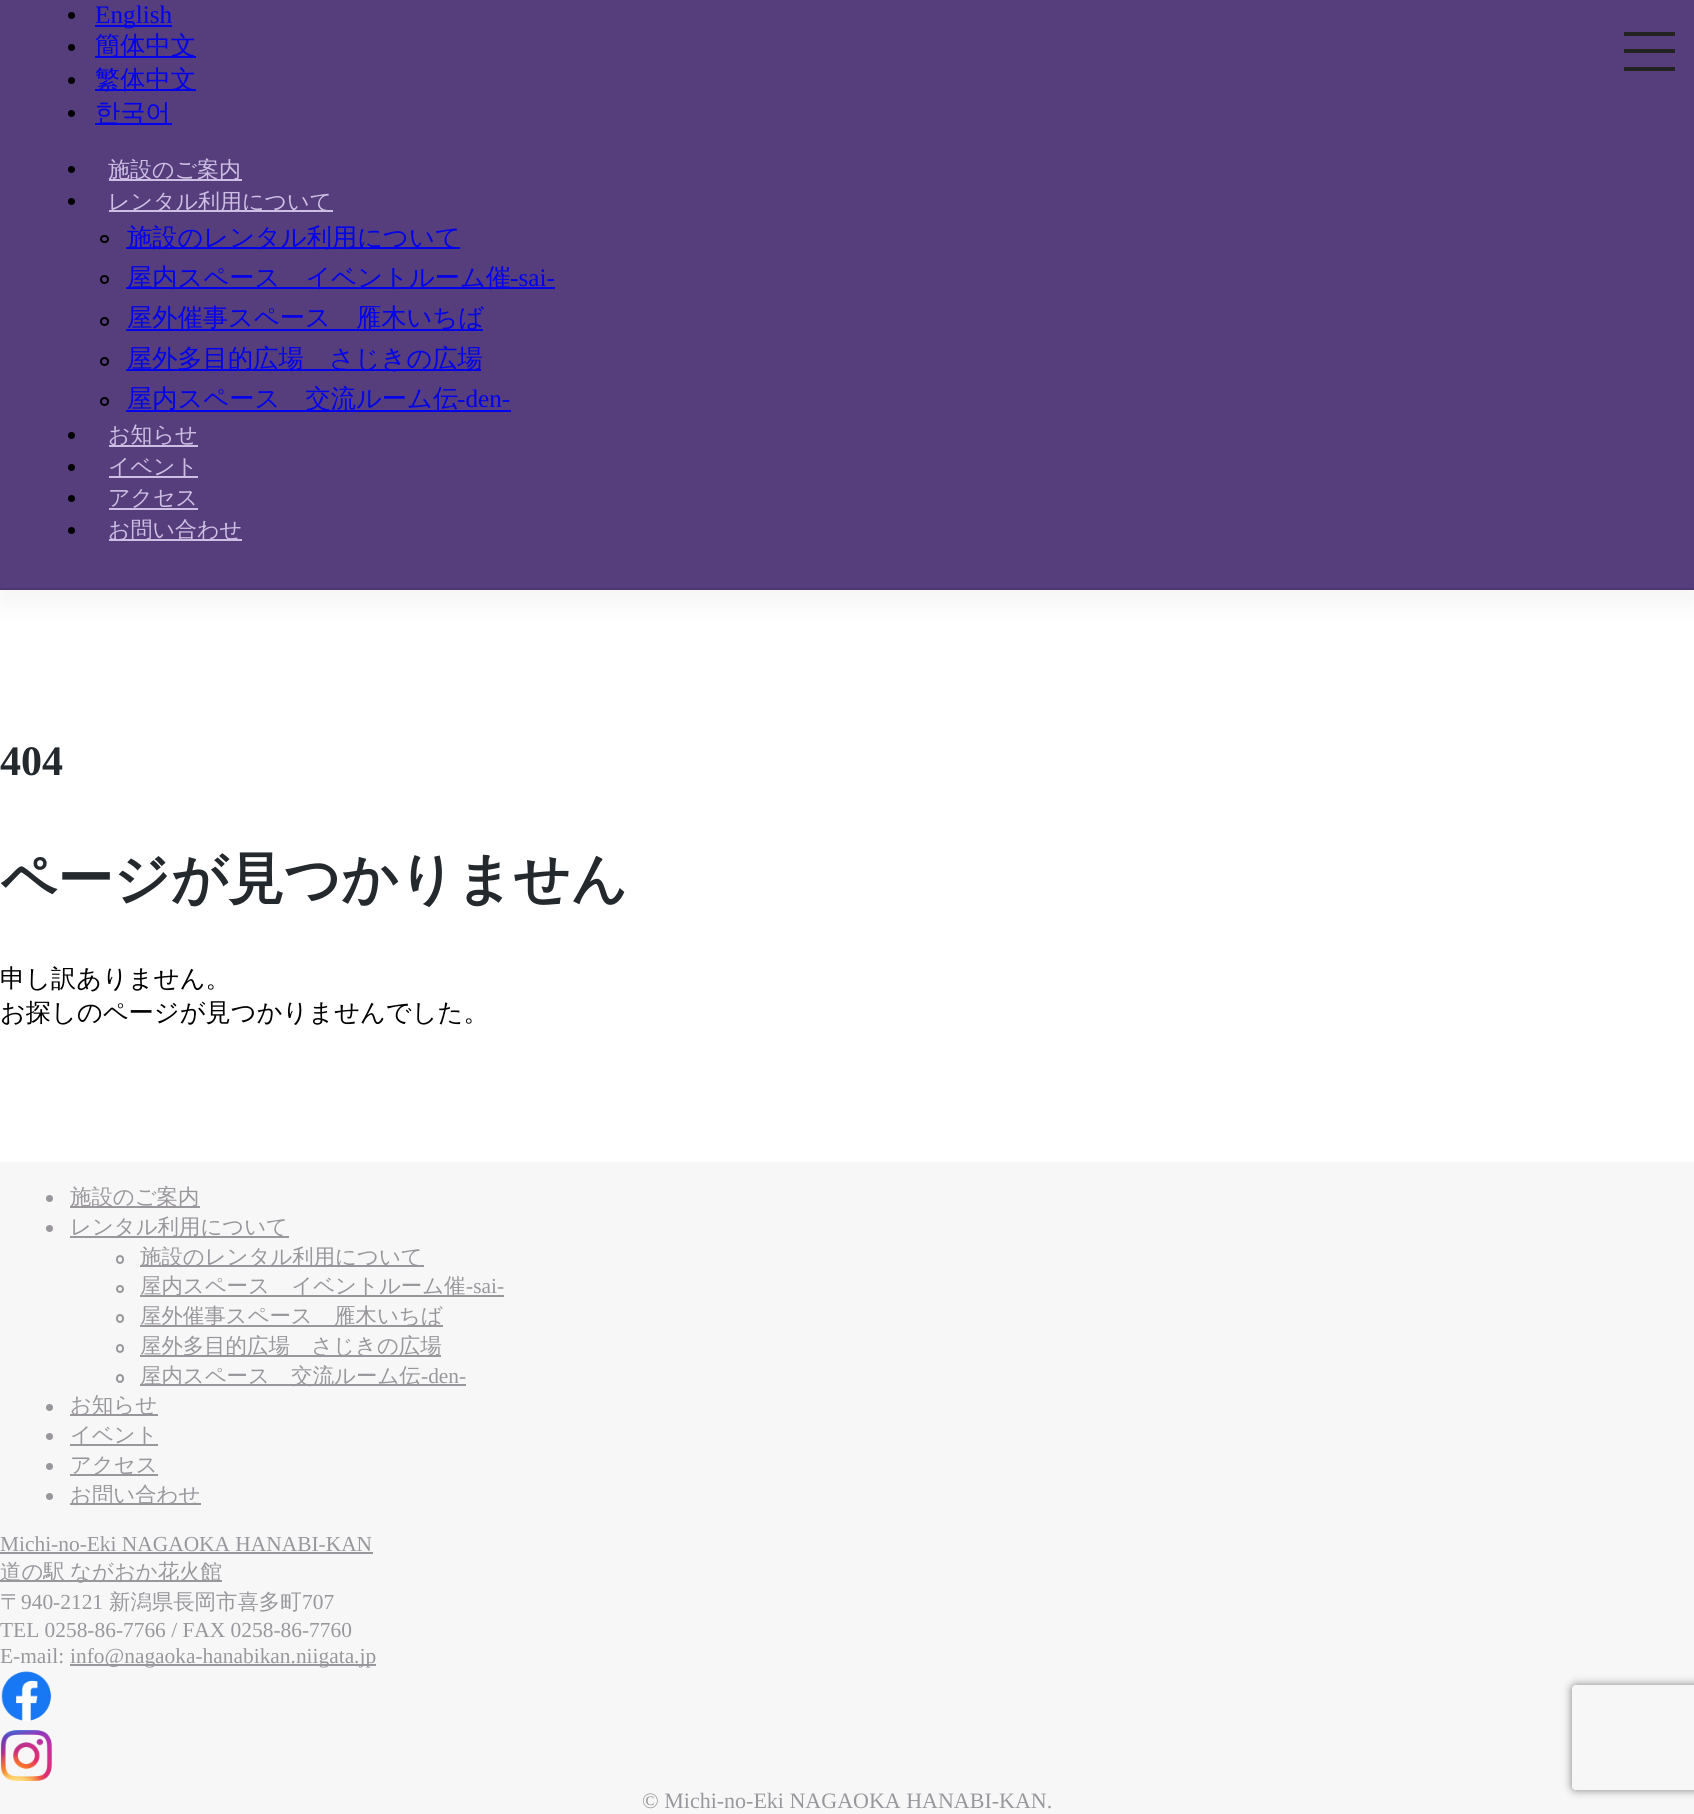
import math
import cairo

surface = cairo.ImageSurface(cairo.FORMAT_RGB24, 1694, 1814)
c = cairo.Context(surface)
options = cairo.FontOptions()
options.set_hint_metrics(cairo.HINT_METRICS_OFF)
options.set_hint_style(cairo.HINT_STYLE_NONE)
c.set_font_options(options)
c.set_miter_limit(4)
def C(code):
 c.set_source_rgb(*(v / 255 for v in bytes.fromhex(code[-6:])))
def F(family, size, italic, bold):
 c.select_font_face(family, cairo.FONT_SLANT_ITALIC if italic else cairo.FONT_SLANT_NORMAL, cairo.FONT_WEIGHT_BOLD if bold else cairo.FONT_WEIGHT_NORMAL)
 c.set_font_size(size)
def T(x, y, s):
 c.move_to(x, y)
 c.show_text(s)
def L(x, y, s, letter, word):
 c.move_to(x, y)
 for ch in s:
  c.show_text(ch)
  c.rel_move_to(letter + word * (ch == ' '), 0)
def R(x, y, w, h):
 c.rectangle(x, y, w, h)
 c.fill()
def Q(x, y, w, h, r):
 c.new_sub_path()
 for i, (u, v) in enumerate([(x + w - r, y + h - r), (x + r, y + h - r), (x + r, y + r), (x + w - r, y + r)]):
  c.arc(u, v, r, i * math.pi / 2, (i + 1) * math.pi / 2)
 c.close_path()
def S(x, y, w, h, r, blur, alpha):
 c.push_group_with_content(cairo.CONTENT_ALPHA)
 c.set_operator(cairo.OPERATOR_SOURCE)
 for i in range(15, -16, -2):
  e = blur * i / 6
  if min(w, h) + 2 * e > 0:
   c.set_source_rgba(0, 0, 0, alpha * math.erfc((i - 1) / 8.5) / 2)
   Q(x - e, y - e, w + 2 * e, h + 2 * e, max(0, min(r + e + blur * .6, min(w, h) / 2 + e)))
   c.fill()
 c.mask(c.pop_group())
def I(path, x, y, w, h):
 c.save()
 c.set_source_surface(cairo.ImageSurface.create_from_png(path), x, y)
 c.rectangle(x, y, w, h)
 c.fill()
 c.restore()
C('ffffff')
c.paint()
C('000000')
S(0,-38,1694,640,0,12.5,.05)
C('563d7c')
R(0,0,1694,588)
C('4d3770')
R(0,588,1694,2)
C('000000')
c.arc(71.5,15.5,3.5,0,2 * math.pi)
c.fill()
C('0000ee')
R(95,25,77,2)
F('Liberation Serif',25.25,0,0)
T(95,23,'English')
C('000000')
c.new_path()
c.arc(71.5,47.5,3.5,0,2 * math.pi)
c.fill()
C('0000ee')
R(95,56,101,2)
F('WenQuanYi Zen Hei Medium',25.25,0,0)
T(95,54,'簡体中文')
C('000000')
c.new_path()
c.arc(71.5,80.5,3.5,0,2 * math.pi)
c.fill()
C('0000ee')
R(95,89,101,2)
T(95,88,'繁体中文')
C('000000')
c.new_path()
c.arc(71.5,113.5,3.5,0,2 * math.pi)
c.fill()
C('0000ee')
R(95,123,77,2)
T(95,121,'한국어')
C('000000')
c.new_path()
c.arc(71.5,169.5,3.5,0,2 * math.pi)
c.fill()
C('cdbfe3')
R(109,179,133,2)
F('WenQuanYi Zen Hei Medium',22,0,0)
T(108,177,'施設のご案内')
C('000000')
c.new_path()
c.arc(71.5,201.5,3.5,0,2 * math.pi)
c.fill()
C('cdbfe3')
R(109,210,224,2)
T(108,209,'レンタル利用について')
Q(101,236,7,6,3)
C('000000')
c.stroke()
C('0000ee')
R(126,247,334,2)
F('WenQuanYi Zen Hei Medium',25.25,0,0)
T(127,246,'施設のレンタル利用について')
c.new_path()
c.arc(104.5,279.5,3.5,0,2 * math.pi)
C('000000')
c.stroke()
C('0000ee')
R(126,287,429,2)
T(127,286,'屋内スペース　イベントルーム催')
F('Liberation Serif',25.25,0,0)
T(510,286,'-sai-')
c.new_path()
c.arc(104.5,321.5,3.5,0,2 * math.pi)
C('000000')
c.stroke()
C('0000ee')
R(126,329,357,2)
F('WenQuanYi Zen Hei Medium',25.25,0,0)
T(127,326,'屋外催事スペース　雁木いちば')
c.new_path()
c.arc(104.5,361.5,3.5,0,2 * math.pi)
C('000000')
c.stroke()
C('0000ee')
R(126,369,355,2)
T(127,367,'屋外多目的広場　さじきの広場')
c.new_path()
c.arc(104.5,401.5,3.5,0,2 * math.pi)
C('000000')
c.stroke()
C('0000ee')
R(126,410,385,2)
T(127,407,'屋内スペース　交流ルーム伝')
F('Liberation Serif',25.25,0,0)
T(457,407,'-den-')
C('000000')
c.new_path()
c.arc(71.5,435.5,3.5,0,2 * math.pi)
c.fill()
C('cdbfe3')
R(109,445,89,2)
F('WenQuanYi Zen Hei Medium',22,0,0)
T(108,442,'お知らせ')
C('000000')
c.new_path()
c.arc(71.5,467.5,3.5,0,2 * math.pi)
c.fill()
C('cdbfe3')
R(109,476,89,2)
T(108,474,'イベント')
C('000000')
c.new_path()
c.arc(71.5,498.5,3.5,0,2 * math.pi)
c.fill()
C('cdbfe3')
T(108,505,'アクセス')
R(109,508,89,2)
C('000000')
c.new_path()
c.arc(71.5,530.5,3.5,0,2 * math.pi)
c.fill()
C('cdbfe3')
R(109,539,133,2)
T(108,537,'お問い合わせ')
C('222222')
R(1624,49,51,4)
R(1624,32,51,4)
R(1624,67,51,4)
F('Liberation Serif',42,0,1)
C('24292e')
T(0,775,'404')
F('WenQuanYi Zen Hei',56,0,1)
T(0,898,'ページが見つかりません')
F('WenQuanYi Zen Hei Medium',25.25,0,0)
C('000000')
T(0,987,'申し訳ありません。')
T(0,1021,'お探しのページが見つかりませんでした。')
C('f7f7f7')
R(0,1162,1694,652)
C('99979c')
c.new_path()
c.arc(49.5,1198.5,3.5,0,2 * math.pi)
c.fill()
R(70,1206,130,2)
F('WenQuanYi Zen Hei Medium',21.4,0,0)
T(70,1204,'施設のご案内')
c.new_path()
c.arc(49.5,1228.5,3.5,0,2 * math.pi)
c.fill()
R(70,1236,219,2)
T(70,1234,'レンタル利用について')
Q(117,1256,6,7,3)
c.stroke()
R(140,1265,284,2)
T(140,1264,'施設のレンタル利用について')
c.new_path()
c.arc(120,1289,3,0,2 * math.pi)
c.stroke()
R(140,1295,364,2)
T(140,1293,'屋内スペース　イベントルーム催')
F('Liberation Serif',21.4,0,0)
T(466,1293,'-sai-')
Q(117,1315,6,7,3)
c.stroke()
R(140,1325,303,2)
F('WenQuanYi Zen Hei Medium',21.4,0,0)
T(140,1323,'屋外催事スペース　雁木いちば')
Q(117,1345,6,7,3)
c.stroke()
R(140,1355,301,2)
T(140,1353,'屋外多目的広場　さじきの広場')
Q(117,1375,6,7,3)
c.stroke()
R(140,1384,326,2)
T(140,1383,'屋内スペース　交流ルーム伝')
F('Liberation Serif',21.4,0,0)
T(421,1383,'-den-')
c.new_path()
c.arc(49.5,1407.5,3.5,0,2 * math.pi)
c.fill()
R(70,1414,88,2)
F('WenQuanYi Zen Hei Medium',21.4,0,0)
T(70,1412,'お知らせ')
c.new_path()
c.arc(49.5,1436.5,3.5,0,2 * math.pi)
c.fill()
R(70,1444,88,2)
T(70,1442,'イベント')
c.new_path()
c.arc(49.5,1466.5,3.5,0,2 * math.pi)
c.fill()
R(70,1474,88,2)
T(70,1472,'アクセス')
c.new_path()
c.arc(49.5,1496.5,3.5,0,2 * math.pi)
c.fill()
R(70,1503,131,2)
T(70,1502,'お問い合わせ')
F('Liberation Serif',21.4,0,0)
T(0,1551,'Michi-no-Eki NAGAOKA HANABI-KAN')
R(0,1552,373,2)
R(0,1580,222,2)
F('WenQuanYi Zen Hei Medium',21.4,0,0)
L(0,1579,'道の駅 ながおか花火館',0,-1)
T(0,1609,'〒')
F('Liberation Serif',21.4,0,0)
T(21,1609,'940-2121')
F('WenQuanYi Zen Hei Medium',21.4,0,0)
T(109,1609,'新潟県長岡市喜多町')
F('Liberation Serif',21.4,0,0)
T(302,1609,'707')
T(0,1637,'TEL 0258-86-7766 / FAX 0258-86-7760')
T(0,1663,'E-mail:')
R(70,1664,306,2)
T(70,1663,'info@nagaoka-hanabikan.niigata.jp')
I('1.png',1,1671,50,50)
I('2.png',0,1730,52,51)
F('Liberation Serif',22,0,0)
T(642,1808,'© Michi-no-Eki NAGAOKA HANABI-KAN.')
c.save()
c.set_fill_rule(cairo.FILL_RULE_EVEN_ODD)
c.new_path()
c.move_to(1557,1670)
c.line_to(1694,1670)
c.line_to(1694,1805)
c.line_to(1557,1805)
c.close_path()
c.move_to(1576,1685)
c.line_to(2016,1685)
c.curve_to(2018,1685,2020,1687,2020,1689)
c.line_to(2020,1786)
c.curve_to(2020,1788,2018,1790,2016,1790)
c.line_to(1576,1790)
c.curve_to(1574,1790,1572,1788,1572,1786)
c.line_to(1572,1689)
c.curve_to(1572,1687,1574,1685,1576,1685)
c.close_path()
c.clip()
C('808080')
S(1572,1685,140,105,4,4.5,1)
c.restore()
surface.write_to_png('o.png')
